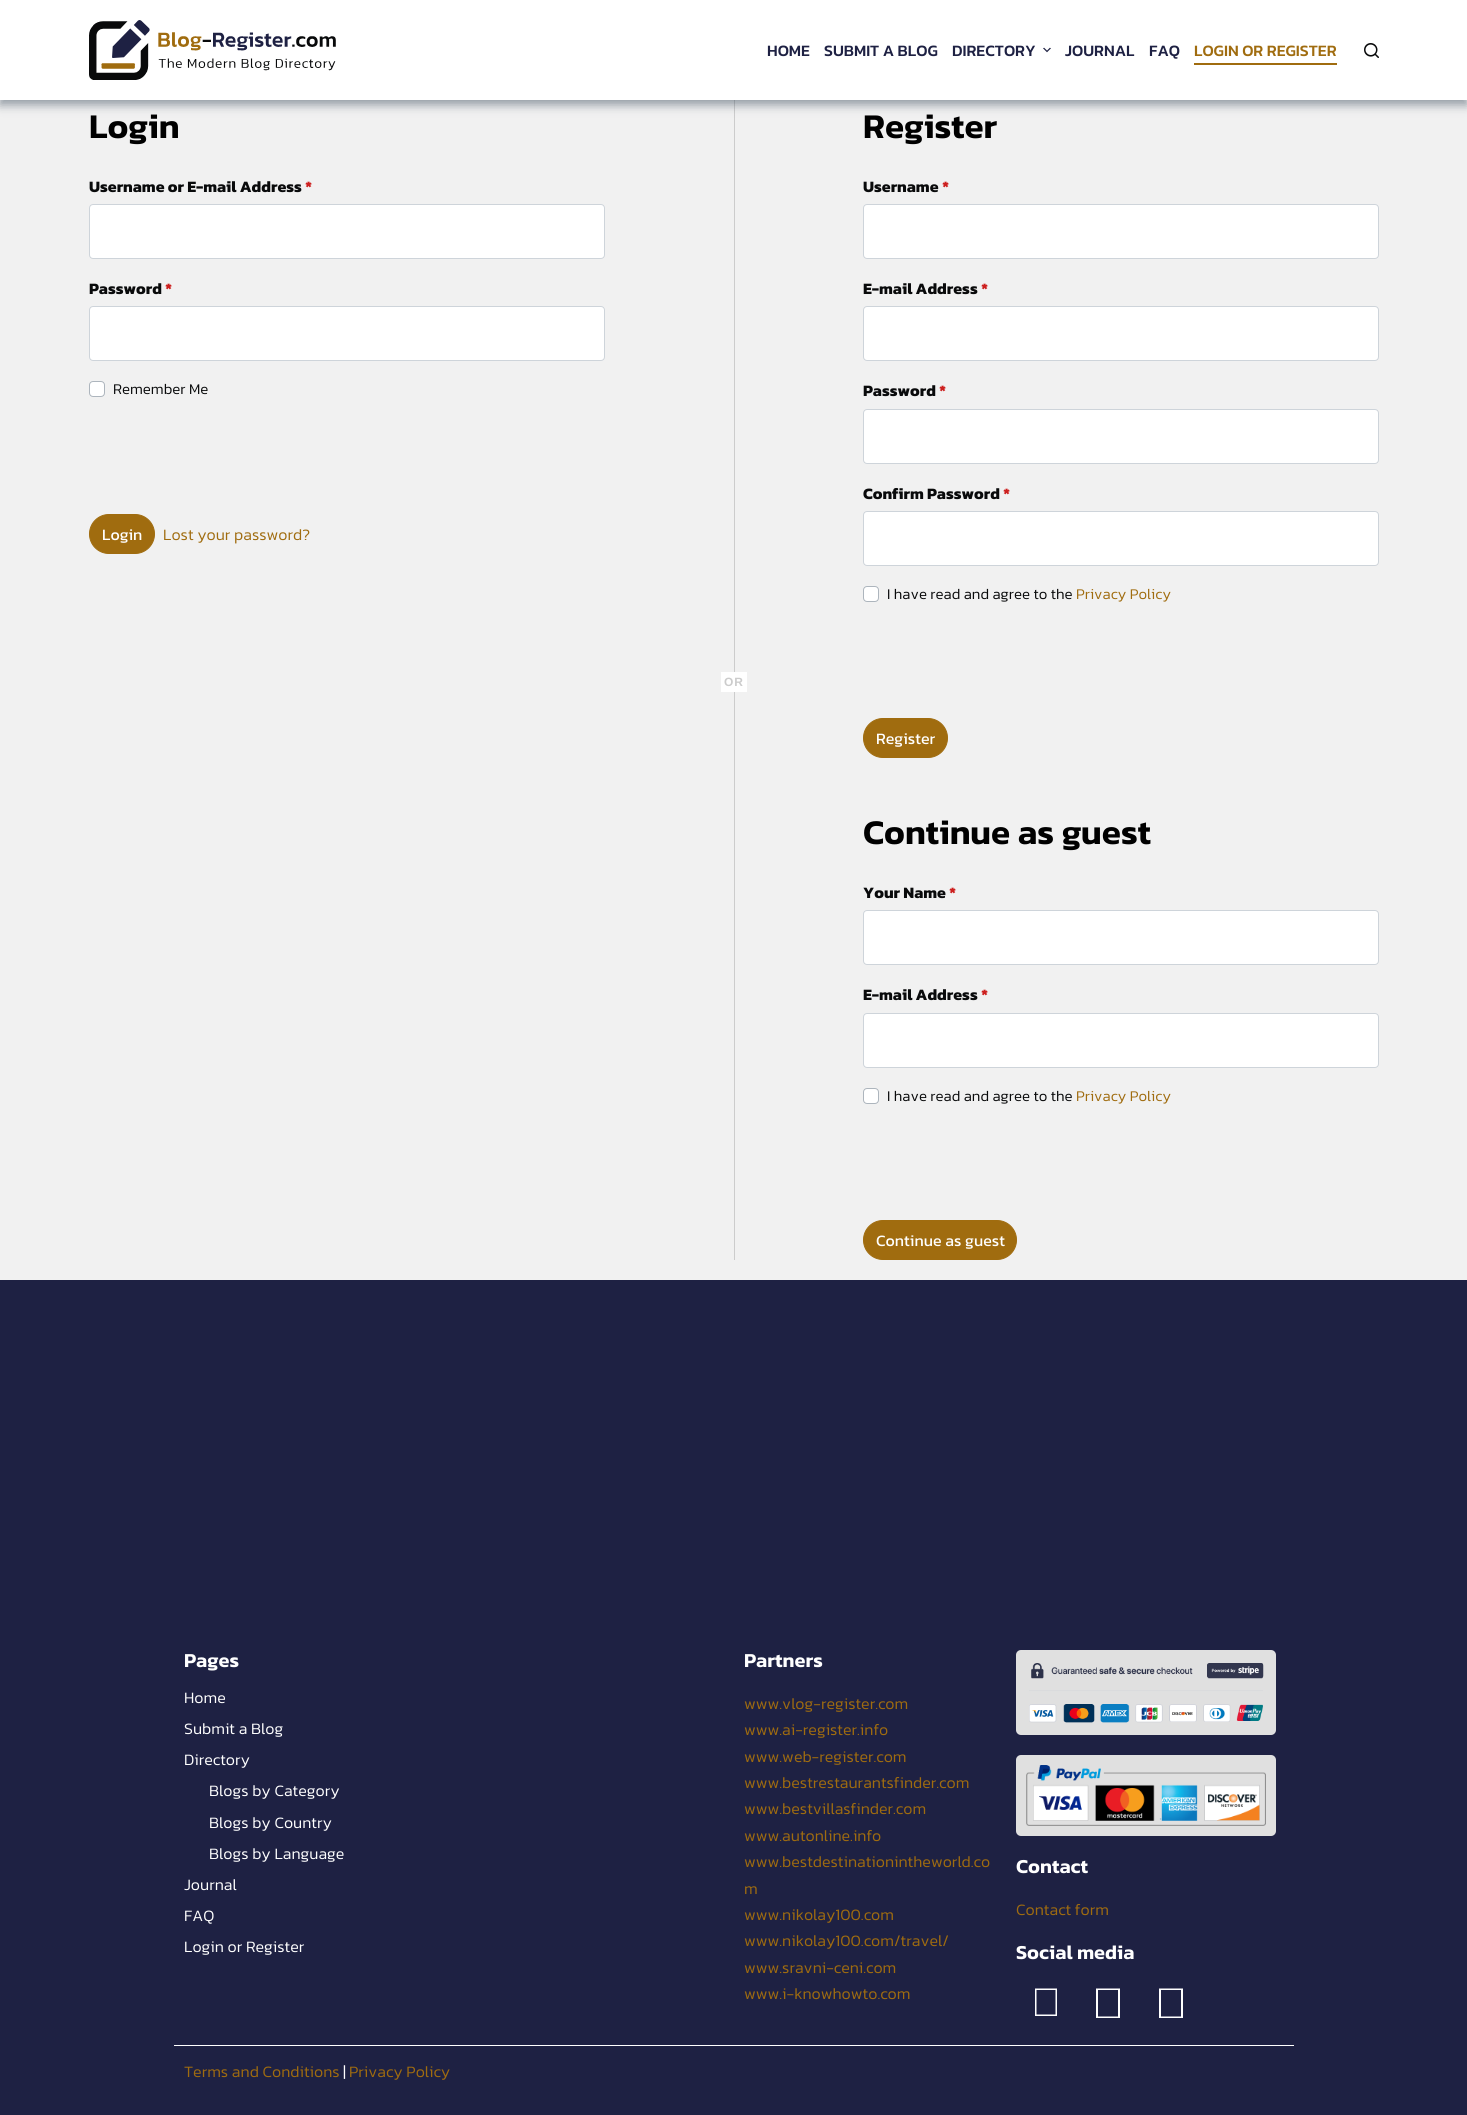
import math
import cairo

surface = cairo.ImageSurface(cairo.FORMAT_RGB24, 1467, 2115)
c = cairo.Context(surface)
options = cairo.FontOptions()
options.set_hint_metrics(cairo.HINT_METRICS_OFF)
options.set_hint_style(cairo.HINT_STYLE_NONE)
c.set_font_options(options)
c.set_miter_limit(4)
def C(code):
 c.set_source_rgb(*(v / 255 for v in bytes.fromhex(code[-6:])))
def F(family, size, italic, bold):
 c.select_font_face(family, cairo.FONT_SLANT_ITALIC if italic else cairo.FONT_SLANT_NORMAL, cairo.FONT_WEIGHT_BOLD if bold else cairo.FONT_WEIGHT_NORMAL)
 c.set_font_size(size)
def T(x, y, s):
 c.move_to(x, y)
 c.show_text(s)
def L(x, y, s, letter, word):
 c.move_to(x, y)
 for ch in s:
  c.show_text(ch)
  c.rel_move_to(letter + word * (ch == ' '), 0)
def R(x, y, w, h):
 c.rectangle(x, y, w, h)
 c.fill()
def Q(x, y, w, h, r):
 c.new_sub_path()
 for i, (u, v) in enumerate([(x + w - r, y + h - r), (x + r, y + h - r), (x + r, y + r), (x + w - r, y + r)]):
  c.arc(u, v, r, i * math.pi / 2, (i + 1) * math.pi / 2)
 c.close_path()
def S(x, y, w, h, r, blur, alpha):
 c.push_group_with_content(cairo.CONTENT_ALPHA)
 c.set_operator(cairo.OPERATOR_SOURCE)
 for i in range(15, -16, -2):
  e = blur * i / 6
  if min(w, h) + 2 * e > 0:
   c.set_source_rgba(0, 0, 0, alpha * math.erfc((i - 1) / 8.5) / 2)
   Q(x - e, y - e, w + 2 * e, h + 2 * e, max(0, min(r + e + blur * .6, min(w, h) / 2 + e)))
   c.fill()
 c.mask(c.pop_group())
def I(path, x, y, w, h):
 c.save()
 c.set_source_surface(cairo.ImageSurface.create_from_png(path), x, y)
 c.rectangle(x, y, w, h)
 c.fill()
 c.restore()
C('f1f1f1')
c.paint()
C('cccccc')
R(734,100,1,1160)
C('2b3d4f')
S(0,5,1467,100,0,5,.48)
C('ffffff')
R(0,0,1467,100)
I('1.png',89,20,247,60)
F('Kanit Medium',16,0,0)
C('1e2143')
T(767,56,'HOME')
T(824,56,'SUBMIT A BLOG')
T(952,56,'DIRECTORY')
I('2.png',1043,47,8,6)
T(1065,56,'JOURNAL')
T(1149,56,'FAQ')
C('a06c0f')
T(1194,56,'LOGIN OR REGISTER')
R(1194,63,143,2)
I('3.png',1364,43,15,15)
F('Kanit SemiBold',35,0,0)
C('000000')
T(89,138,'Login')
F('Kanit',16,0,1)
C('090a0b')
T(89,192,'Username or E-mail Address')
C('cd201f')
T(305,192,'*')
C('ffffff')
Q(89.5,204.5,515,54,3.5)
c.fill_preserve()
C('ced4da')
c.set_line_width(1)
c.stroke()
C('090a0b')
T(89,294,'Password')
C('cd201f')
T(165,294,'*')
C('ffffff')
Q(89.5,306.5,515,54,3.5)
c.fill_preserve()
C('ced4da')
c.stroke()
C('ffffff')
Q(89.5,381.5,15,15,3.5)
c.fill_preserve()
C('adb5bd')
c.stroke()
F('Kanit Light',15,0,0)
C('090a0b')
T(113,394,'Remember Me')
C('a06c0f')
Q(89.5,514.5,65,39,19.5)
c.fill_preserve()
c.stroke()
F('Kanit',16,0,0)
C('ffffff')
T(102,540,'Login')
F('Kanit Light',16,0,0)
C('a06c0f')
T(163,540,'Lost your password?')
C('ffffff')
R(721,672,26,20)
F('Liberation Sans',12,0,1)
C('cccccc')
L(724,686,'OR',1,0)
F('Kanit SemiBold',35,0,0)
C('000000')
T(863,138,'Register')
F('Kanit',16,0,1)
C('090a0b')
T(863,192,'Username')
C('cd201f')
T(942,192,'*')
C('ffffff')
Q(863.5,204.5,515,54,3.5)
c.fill_preserve()
C('ced4da')
c.stroke()
C('090a0b')
T(863,294,'E-mail Address')
C('cd201f')
T(981,294,'*')
C('ffffff')
Q(863.5,306.5,515,54,3.5)
c.fill_preserve()
C('ced4da')
c.stroke()
C('090a0b')
T(863,396,'Password')
C('cd201f')
T(939,396,'*')
C('ffffff')
Q(863.5,409.5,515,54,3.5)
c.fill_preserve()
C('ced4da')
c.stroke()
C('090a0b')
T(863,499,'Confirm Password')
C('cd201f')
T(1003,499,'*')
C('ffffff')
Q(863.5,511.5,515,54,3.5)
c.fill_preserve()
C('ced4da')
c.stroke()
C('ffffff')
Q(863.5,586.5,15,15,3.5)
c.fill_preserve()
C('adb5bd')
c.stroke()
F('Kanit Light',15,0,0)
C('090a0b')
T(887,599,'I have read and agree to the')
C('a06c0f')
T(1076,599,'Privacy Policy')
Q(863.5,718.5,84,39,19.5)
c.fill_preserve()
c.stroke()
F('Kanit',16,0,0)
C('ffffff')
T(876,744,'Register')
F('Kanit SemiBold',35,0,0)
C('000000')
T(863,844,'Continue as guest')
F('Kanit',16,0,1)
C('090a0b')
T(863,898,'Your Name')
C('cd201f')
T(949,898,'*')
C('ffffff')
Q(863.5,910.5,515,54,3.5)
c.fill_preserve()
C('ced4da')
c.stroke()
C('090a0b')
T(863,1000,'E-mail Address')
C('cd201f')
T(981,1000,'*')
C('ffffff')
Q(863.5,1013.5,515,54,3.5)
c.fill_preserve()
C('ced4da')
c.stroke()
C('ffffff')
Q(863.5,1088.5,15,15,3.5)
c.fill_preserve()
C('adb5bd')
c.stroke()
F('Kanit Light',15,0,0)
C('090a0b')
T(887,1101,'I have read and agree to the')
C('a06c0f')
T(1076,1101,'Privacy Policy')
Q(863.5,1220.5,153,39,19.5)
c.fill_preserve()
c.stroke()
F('Kanit',16,0,0)
C('ffffff')
T(876,1246,'Continue as guest')
C('1e2143')
R(0,1280,1467,835)
F('Kanit SemiBold',20,0,0)
C('ffffff')
T(184,1667,'Pages')
F('Kanit Light',16,0,0)
T(184,1703,'Home')
T(184,1734,'Submit a Blog')
T(184,1765,'Directory')
T(209,1796,'Blogs by Category')
T(209,1828,'Blogs by Country')
T(209,1859,'Blogs by Language')
T(184,1890,'Journal')
T(184,1921,'FAQ')
T(184,1952,'Login or Register')
F('Kanit SemiBold',20,0,0)
T(744,1667,'Partners')
F('Kanit Light',16,0,0)
C('a06c0f')
T(744,1709,'www.vlog-register.com')
T(744,1735,'www.ai-register.info')
T(744,1762,'www.web-register.com')
T(744,1788,'www.bestrestaurantsfinder.com')
T(744,1814,'www.bestvillasfinder.com')
T(744,1841,'www.autonline.info')
T(744,1867,'www.bestdestinationintheworld.co')
T(744,1894,'m')
T(744,1920,'www.nikolay100.com')
T(744,1946,'www.nikolay100.com/travel/')
T(744,1973,'www.sravni-ceni.com')
T(744,1999,'www.i-knowhowto.com')
C('e0e0e0')
Q(1016,1650,260,85,5)
c.fill()
I('4.png',1029,1663,235,60)
Q(1016,1755,260,81,5)
c.fill()
I('5.png',1026,1765,240,61)
F('Kanit SemiBold',20,0,0)
C('ffffff')
T(1016,1873,'Contact')
F('Kanit Light',16,0,0)
C('a06c0f')
T(1016,1915,'Contact form')
F('Kanit SemiBold',20,0,0)
C('ffffff')
T(1016,1959,'Social media')
c.new_path()
c.move_to(1035,1988.5)
c.line_to(1057,1988.5)
c.line_to(1057,2016)
c.line_to(1035,2016)
c.close_path()
c.move_to(1036.5,1990)
c.line_to(1036.5,2014.5)
c.line_to(1055.5,2014.5)
c.line_to(1055.5,1990)
c.close_path()
c.fill()
c.new_path()
c.move_to(1096,1988.5)
c.line_to(1120,1988.5)
c.line_to(1120,2018)
c.line_to(1096,2018)
c.close_path()
c.move_to(1098,1990)
c.line_to(1098,2016.5)
c.line_to(1118,2016.5)
c.line_to(1118,1990)
c.close_path()
c.fill()
c.new_path()
c.move_to(1159,1988.5)
c.line_to(1183,1988.5)
c.line_to(1183,2018)
c.line_to(1159,2018)
c.close_path()
c.move_to(1161,1990)
c.line_to(1161,2016.5)
c.line_to(1181,2016.5)
c.line_to(1181,1990)
c.close_path()
c.fill()
R(174,2045,1120,1)
F('Kanit Light',16,0,0)
C('a06c0f')
T(184,2077,'Terms and Conditions')
C('ffffff')
T(343,2077,'|')
C('a06c0f')
T(349,2077,'Privacy Policy')
surface.write_to_png('o.png')
